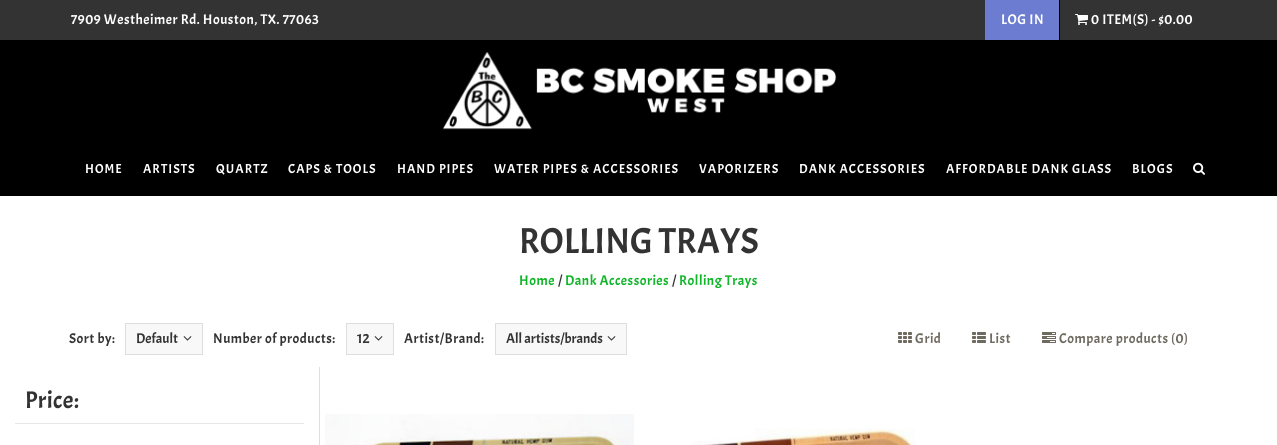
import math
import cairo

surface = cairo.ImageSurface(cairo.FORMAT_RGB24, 1277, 445)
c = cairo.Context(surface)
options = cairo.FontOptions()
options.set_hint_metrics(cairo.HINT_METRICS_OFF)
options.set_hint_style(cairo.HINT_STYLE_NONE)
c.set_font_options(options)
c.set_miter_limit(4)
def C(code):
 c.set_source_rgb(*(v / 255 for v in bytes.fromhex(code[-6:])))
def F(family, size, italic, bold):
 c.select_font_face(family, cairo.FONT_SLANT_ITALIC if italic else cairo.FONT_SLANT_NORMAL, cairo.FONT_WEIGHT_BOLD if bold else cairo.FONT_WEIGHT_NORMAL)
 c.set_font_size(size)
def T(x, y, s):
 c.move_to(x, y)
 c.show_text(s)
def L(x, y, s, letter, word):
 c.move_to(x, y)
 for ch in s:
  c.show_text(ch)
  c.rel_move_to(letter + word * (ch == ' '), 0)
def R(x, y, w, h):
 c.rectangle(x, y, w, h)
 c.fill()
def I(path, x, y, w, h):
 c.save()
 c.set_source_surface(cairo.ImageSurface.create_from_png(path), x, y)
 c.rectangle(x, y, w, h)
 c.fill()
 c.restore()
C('ffffff')
c.paint()
C('333333')
R(0,0,1277,40)
C('000000')
R(0,40,1277,156)
F('Acme',14,0,0)
C('ffffff')
L(71,24,'7909 Westheimer Rd. Houston, TX. 77063',.5,0)
C('6c7cd0')
R(985,0,74,40)
C('ffffff')
L(1001,24,'LOG IN',.5,0)
C('000000')
R(1059,0,1,40)
I('1.png',1075,14,13,11)
C('ffffff')
L(1091,24,'0 ITEM(S) - $0.00',.5,0)
I('2.png',443,52,394,78)
F('Acme',13,0,0)
L(85,173,'HOME',1,0)
L(143,173,'ARTISTS',1,0)
L(216,173,'QUARTZ',1,0)
L(288,173,'CAPS & TOOLS',1,0)
L(397,173,'HAND PIPES',1,0)
L(494,173,'WATER PIPES & ACCESSORIES',1,0)
L(699,173,'VAPORIZERS',1,0)
L(799,173,'DANK ACCESSORIES',1,0)
L(946,173,'AFFORDABLE DANK GLASS',1,0)
L(1132,173,'BLOGS',1,0)
I('3.png',1193,162,12,13)
F('Acme',36,0,0)
C('333333')
T(519,253,'ROLLING TRAYS')
F('Acme',14,0,0)
C('10b628')
L(519,285,'Home',.5,0)
C('333333')
L(558,285,'/',.5,0)
C('10b628')
L(565,285,'Dank Accessories',.5,0)
C('333333')
L(672,285,'/',.5,0)
C('10b628')
L(679,285,'Rolling Trays',.5,0)
C('333333')
L(69,343,'Sort by:',.5,0)
C('f8f8f8')
c.rectangle(125.5,323.5,77,31)
c.fill_preserve()
C('dedede')
c.set_line_width(1)
c.stroke()
C('333333')
T(136,343,'Default')
I('4.png',183,336,9,5)
L(213,343,'Number of products:',.5,0)
C('f8f8f8')
c.rectangle(346.5,323.5,47,31)
c.fill_preserve()
C('dedede')
c.stroke()
C('333333')
T(357,343,'12')
I('4.png',374,336,9,5)
L(404,343,'Artist/Brand:',.5,0)
C('f8f8f8')
c.rectangle(495.5,323.5,131,31)
c.fill_preserve()
C('dedede')
c.stroke()
C('333333')
T(506,343,'All artists/brands')
I('4.png',607,336,9,5)
I('5.png',898,332,14,11)
C('6f6a60')
L(915,343,'Grid',.5,0)
I('6.png',972,332,14,11)
L(989,343,'List',.5,0)
I('7.png',1042,332,14,11)
L(1059,343,'Compare products (0)',.5,0)
C('e7e7e7')
R(15,423,289,1)
F('Acme',24,0,0)
C('333333')
L(25,408,'Price:',.5,0)
C('dedede')
R(319,367,1,78)
I('8.png',325,414,309,31)
I('9.png',692,428,224,17)
surface.write_to_png('o.png')
